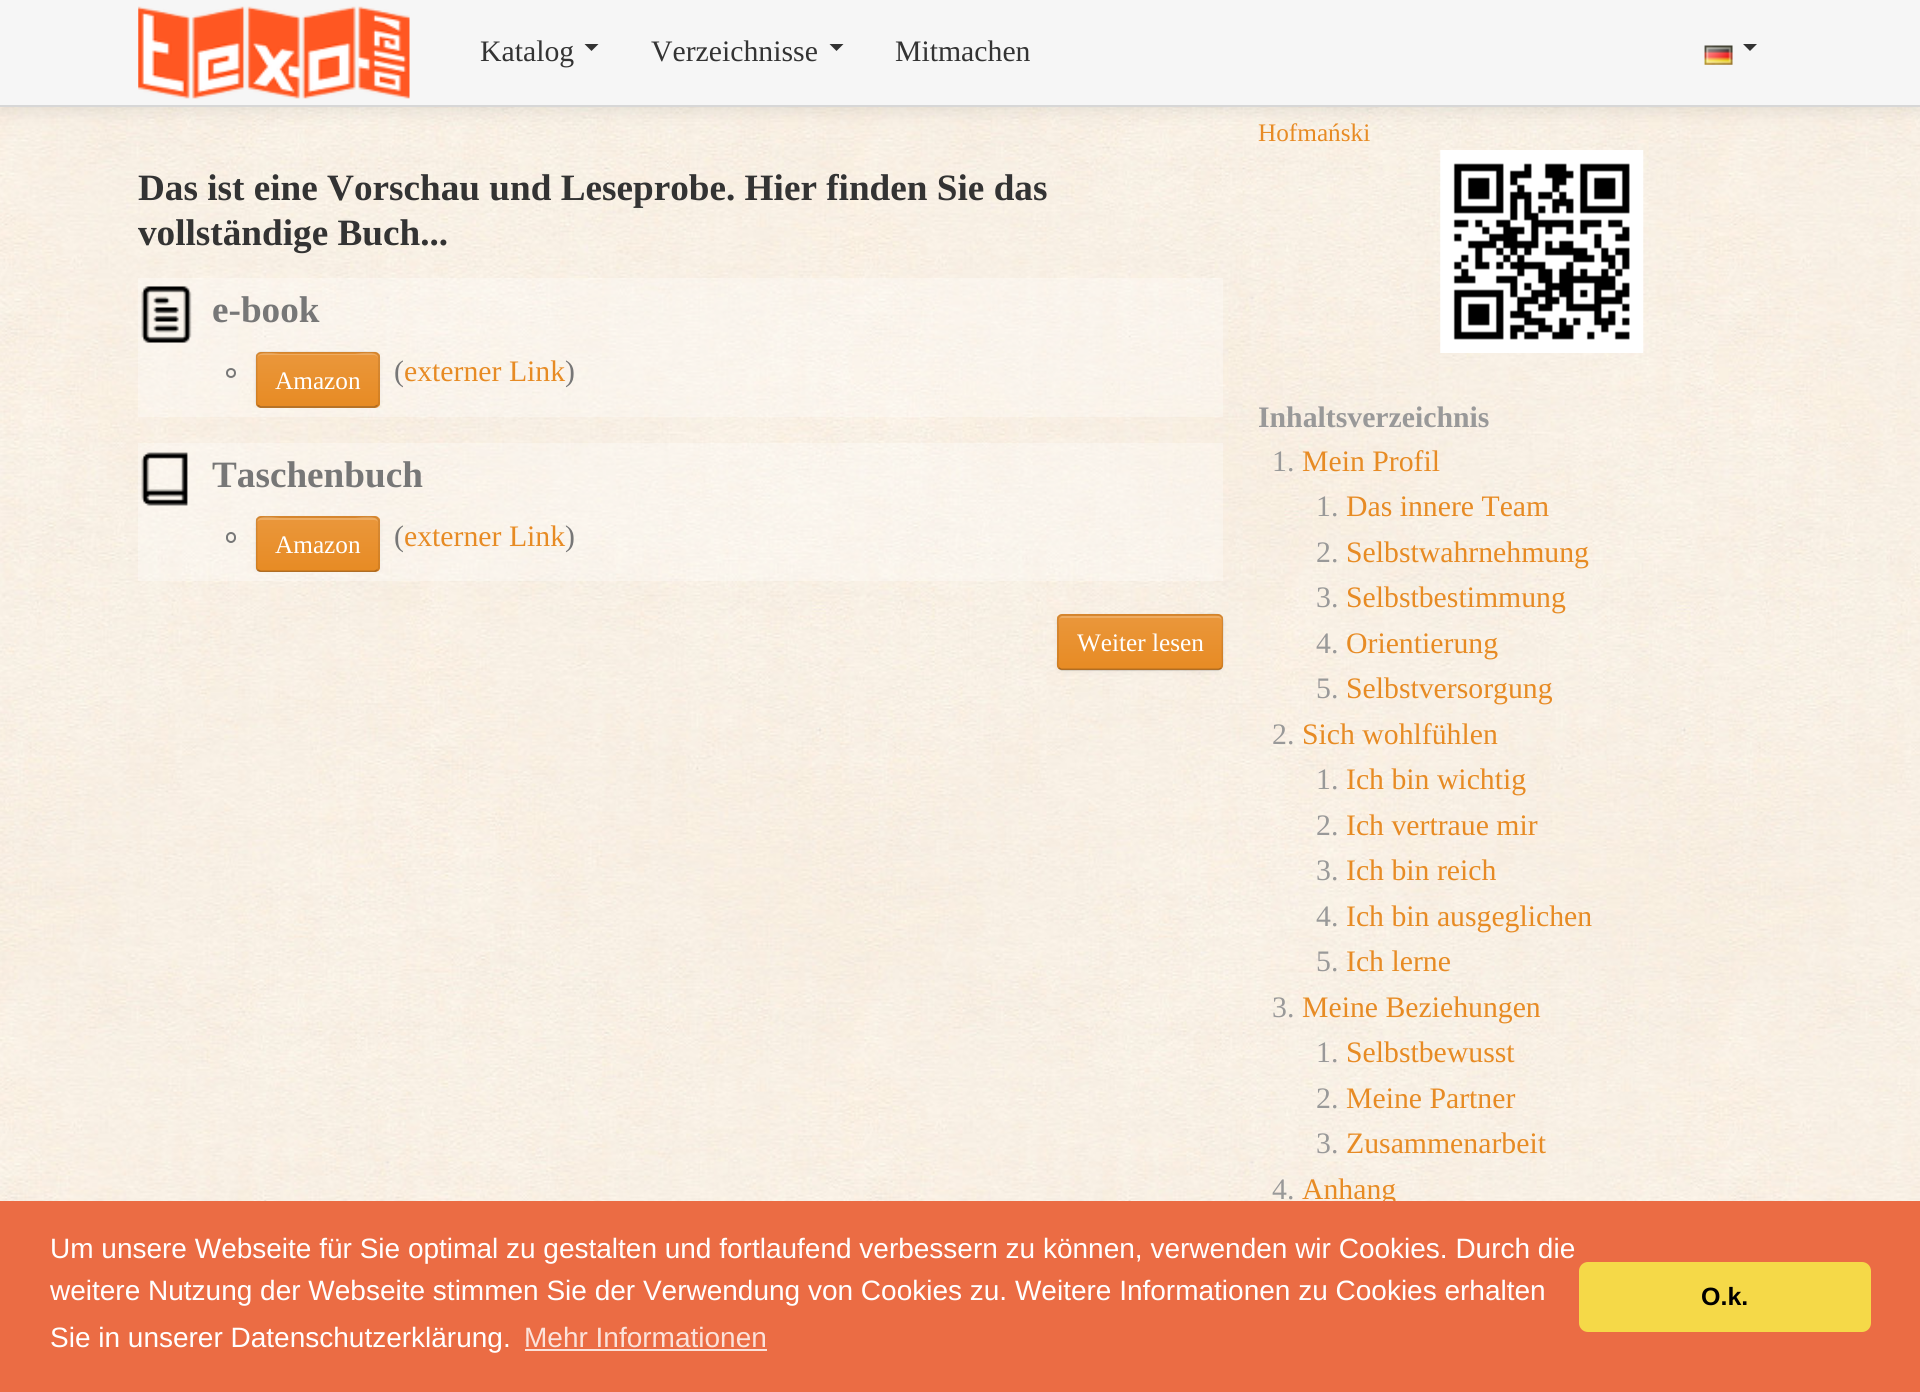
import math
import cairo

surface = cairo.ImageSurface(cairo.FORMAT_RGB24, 1920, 1392)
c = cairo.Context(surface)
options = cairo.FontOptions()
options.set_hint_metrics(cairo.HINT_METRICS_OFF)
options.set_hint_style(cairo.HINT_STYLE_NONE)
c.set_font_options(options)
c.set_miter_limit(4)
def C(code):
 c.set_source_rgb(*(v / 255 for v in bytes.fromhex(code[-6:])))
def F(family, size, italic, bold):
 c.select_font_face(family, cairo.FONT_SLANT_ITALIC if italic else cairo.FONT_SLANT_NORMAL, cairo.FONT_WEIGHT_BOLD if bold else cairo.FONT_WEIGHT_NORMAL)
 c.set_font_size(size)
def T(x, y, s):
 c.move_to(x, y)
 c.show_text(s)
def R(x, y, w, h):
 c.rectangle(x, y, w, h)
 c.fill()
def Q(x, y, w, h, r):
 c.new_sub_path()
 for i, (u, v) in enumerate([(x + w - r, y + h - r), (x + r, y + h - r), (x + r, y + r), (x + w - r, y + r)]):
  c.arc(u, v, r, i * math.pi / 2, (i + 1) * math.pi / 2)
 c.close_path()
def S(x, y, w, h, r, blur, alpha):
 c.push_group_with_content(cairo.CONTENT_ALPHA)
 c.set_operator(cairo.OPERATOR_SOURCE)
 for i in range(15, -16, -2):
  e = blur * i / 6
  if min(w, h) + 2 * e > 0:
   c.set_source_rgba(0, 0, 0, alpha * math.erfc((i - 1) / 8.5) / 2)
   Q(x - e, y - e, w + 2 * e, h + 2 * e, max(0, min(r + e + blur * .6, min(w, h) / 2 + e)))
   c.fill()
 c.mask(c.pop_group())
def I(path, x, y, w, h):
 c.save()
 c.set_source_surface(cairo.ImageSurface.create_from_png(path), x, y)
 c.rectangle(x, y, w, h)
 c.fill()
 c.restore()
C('ffffff')
c.paint()
I('1.png',0,107,1920,1094)
C('000000')
S(0,2,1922,107,0,9,.1)
C('f6f6f6')
R(0,0,1920,105)
C('d7d7d7')
R(0,105,1920,2)
I('2.png',138,6,272,93)
F('Liberation Serif',29.75,0,0)
C('333333')
T(480,61,'Katalog')
c.new_path()
c.move_to(584.5,44)
c.line_to(598.5,44)
c.line_to(591.5,51)
c.close_path()
c.fill()
T(651,61,'Verzeichnisse')
c.new_path()
c.move_to(829.5,44)
c.line_to(843.5,44)
c.line_to(836.5,51)
c.close_path()
c.fill()
T(895,61,'Mitmachen')
I('3.png',1704,45,29,20)
c.new_path()
c.move_to(1743,44)
c.line_to(1757,44)
c.line_to(1750,51)
c.close_path()
c.fill()
F('Liberation Serif',37.2,0,1)
T(138,200,'Das ist eine Vorschau und Leseprobe. Hier finden Sie das')
T(138,245,'vollständige Buch...')
c.set_source_rgba(1,1,1,0.3)
R(138,278,1085,139)
I('4.png',141,286,51,57)
C('777777')
T(212,322,'e-book')
c.new_path()
c.arc(231,373,4,0,2 * math.pi)
c.stroke()
c.save()
c.rectangle(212,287,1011,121)
c.clip()
C('000000')
S(256,354,124,56,5,2,.05)
c.restore()
C('e99232')
Q(256,352,124,56,5)
c.fill()
c.save()
Q(256,352,124,56,5)
c.clip()
gradient = cairo.LinearGradient(318,354,318,406)
gradient.add_color_stop_rgba(0,0.918,0.592,0.231,1)
gradient.add_color_stop_rgba(1,0.906,0.545,0.141,1)
c.set_source(gradient)
R(256,354,124,52)
c.restore()
c.set_source_rgba(1,1,1,0.2)
c.new_path()
c.move_to(261,355)
c.line_to(374,355)
c.curve_to(376,355,378,357,378,359)
c.curve_to(378,349,358,354,355,354)
c.line_to(280,354)
c.curve_to(277,354,257,349,257,359)
c.curve_to(257,357,259,355,261,355)
c.close_path()
c.fill()
c.new_path()
c.move_to(377.5,405.5)
c.line_to(374.5,407)
c.line_to(260.5,407)
c.line_to(257.5,405.5)
c.set_source_rgba(0,0,0,0.25)
c.set_line_width(1.8)
c.stroke()
c.new_path()
c.move_to(257.5,405.5)
c.curve_to(257,405,256.5,403.5,256.5,402.5)
c.line_to(256.5,357)
c.curve_to(256.5,356,257,354.5,257.5,354)
c.curve_to(258.5,353,259.5,352.5,261,352.5)
c.line_to(374.5,352.5)
c.curve_to(375.5,352.5,377,353,377.5,354)
c.curve_to(378.5,354.5,379,356,379,357)
c.line_to(379,402.5)
c.curve_to(379,403.5,378.5,405,377.5,405.5)
c.set_source_rgba(0,0,0,0.1)
c.stroke()
F('Liberation Serif',25.25,0,0)
C('ffffff')
T(275,389,'Amazon')
F('Liberation Serif',29.75,0,0)
C('777777')
T(394,381,'(')
C('e78b24')
T(404,381,'externer Link')
C('777777')
T(565,381,')')
c.set_source_rgba(1,1,1,0.3)
R(138,443,1085,138)
I('5.png',141,452,47,54)
F('Liberation Serif',37.2,0,1)
C('777777')
T(212,487,'Taschenbuch')
Q(227,533,8,9,4)
c.set_line_width(2)
c.stroke()
c.save()
c.rectangle(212,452,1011,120)
c.clip()
C('000000')
S(256,518,124,56,5,2,.05)
c.restore()
C('e99232')
Q(256,516,124,56,5)
c.fill()
c.save()
Q(256,516,124,56,5)
c.clip()
gradient = cairo.LinearGradient(318,518,318,571)
gradient.add_color_stop_rgba(0,0.918,0.592,0.231,1)
gradient.add_color_stop_rgba(1,0.906,0.545,0.141,1)
c.set_source(gradient)
R(256,518,124,53)
c.restore()
c.set_source_rgba(1,1,1,0.2)
c.new_path()
c.move_to(261,520)
c.line_to(374,520)
c.curve_to(376,520,378,521,378,523)
c.curve_to(378,513,358,518,355,518)
c.line_to(280,518)
c.curve_to(277,518,257,513,257,523)
c.curve_to(257,521,259,520,261,520)
c.close_path()
c.fill()
c.save()
c.rectangle(212,452,1011,120)
c.clip()
c.new_path()
c.move_to(377.5,570)
c.line_to(374.5,571.5)
c.line_to(260.5,571.5)
c.line_to(257.5,570)
c.set_source_rgba(0,0,0,0.25)
c.set_line_width(1.8)
c.stroke()
c.restore()
c.new_path()
c.move_to(257.5,570)
c.curve_to(257,569.5,256.5,568,256.5,567)
c.line_to(256.5,521.5)
c.curve_to(256.5,520.5,257,519,257.5,518.5)
c.curve_to(258.5,517.5,259.5,517,261,517)
c.line_to(374.5,517)
c.curve_to(375.5,517,377,517.5,377.5,518.5)
c.curve_to(378.5,519,379,520.5,379,521.5)
c.line_to(379,567)
c.curve_to(379,568,378.5,569.5,377.5,570)
c.set_source_rgba(0,0,0,0.1)
c.set_line_width(1.8)
c.stroke()
F('Liberation Serif',25.25,0,0)
C('ffffff')
T(275,553,'Amazon')
F('Liberation Serif',29.75,0,0)
C('777777')
T(394,546,'(')
C('e78b24')
T(404,546,'externer Link')
C('777777')
T(565,546,')')
C('000000')
S(1057,616,166,56,5,2,.05)
C('e99232')
Q(1057,614,166,56,5)
c.fill()
c.save()
Q(1057,614,166,56,5)
c.clip()
gradient = cairo.LinearGradient(1140,616,1140,669)
gradient.add_color_stop_rgba(0,0.918,0.592,0.231,1)
gradient.add_color_stop_rgba(1,0.906,0.545,0.141,1)
c.set_source(gradient)
R(1057,616,166,53)
c.restore()
C('eeac62')
c.new_path()
c.move_to(1062,618)
c.line_to(1218,618)
c.curve_to(1220,618,1222,619,1222,621)
c.curve_to(1222,619,1221,617,1219,616)
c.line_to(1062,616)
c.curve_to(1060,617,1059,619,1059,621)
c.curve_to(1059,619,1060,618,1062,618)
c.close_path()
c.fill()
c.new_path()
c.move_to(1221,668)
c.curve_to(1220.5,669,1219,669.5,1218,669.5)
c.line_to(1062,669.5)
c.curve_to(1061,669.5,1060,669,1059,668)
c.set_source_rgba(0,0,0,0.25)
c.stroke()
c.new_path()
c.move_to(1059,668)
c.curve_to(1056.5,665.5,1058,659.5,1058,657.5)
c.line_to(1058,627)
c.curve_to(1058,624,1056,615,1062,615)
c.line_to(1192,615)
c.curve_to(1228,615,1222.5,608.5,1222.5,642)
c.line_to(1222.5,657.5)
c.curve_to(1222.5,659.5,1223.5,665.5,1221,668)
c.set_source_rgba(0,0,0,0.1)
c.stroke()
F('Liberation Serif',25.25,0,0)
C('ffffff')
T(1077,651,'Weiter lesen')
C('e78b24')
T(1258,141,'Hofmański')
I('6.png',1440,150,204,203)
F('Liberation Serif',29.75,0,1)
C('999999')
T(1258,427,'Inhaltsverzeichnis')
F('Liberation Serif',29.75,0,0)
T(1272,471,'1.')
C('e78b24')
T(1302,471,'Mein Profil')
C('999999')
T(1316,516,'1.')
C('e78b24')
T(1346,516,'Das innere Team')
C('999999')
T(1316,562,'2.')
C('e78b24')
T(1346,562,'Selbstwahrnehmung')
C('999999')
T(1316,607,'3.')
C('e78b24')
T(1346,607,'Selbstbestimmung')
C('999999')
T(1316,653,'4.')
C('e78b24')
T(1346,653,'Orientierung')
C('999999')
T(1316,698,'5.')
C('e78b24')
T(1346,698,'Selbstversorgung')
C('999999')
T(1272,744,'2.')
C('e78b24')
T(1302,744,'Sich wohlfühlen')
C('999999')
T(1316,789,'1.')
C('e78b24')
T(1346,789,'Ich bin wichtig')
C('999999')
T(1316,835,'2.')
C('e78b24')
T(1346,835,'Ich vertraue mir')
C('999999')
T(1316,880,'3.')
C('e78b24')
T(1346,880,'Ich bin reich')
C('999999')
T(1316,926,'4.')
C('e78b24')
T(1346,926,'Ich bin ausgeglichen')
C('999999')
T(1316,971,'5.')
C('e78b24')
T(1346,971,'Ich lerne')
C('999999')
T(1272,1017,'3.')
C('e78b24')
T(1302,1017,'Meine Beziehungen')
C('999999')
T(1316,1062,'1.')
C('e78b24')
T(1346,1062,'Selbstbewusst')
C('999999')
T(1316,1108,'2.')
C('e78b24')
T(1346,1108,'Meine Partner')
C('999999')
T(1316,1153,'3.')
C('e78b24')
T(1346,1153,'Zusammenarbeit')
C('999999')
T(1272,1199,'4.')
C('e78b24')
T(1302,1199,'Anhang')
C('eb6c44')
R(0,1201,1920,191)
F('Liberation Sans',28,0,0)
C('ffffff')
T(50,1258,'Um unsere Webseite für Sie optimal zu gestalten und fortlaufend verbessern zu können, verwenden wir Cookies. Durch die')
T(50,1300,'weitere Nutzung der Webseite stimmen Sie der Verwendung von Cookies zu. Weitere Informationen zu Cookies erhalten')
T(50,1347,'Sie in unserer Datenschutzerklärung.')
C('fbe2da')
T(524,1347,'Mehr Informationen')
R(525,1349,242,2)
C('f5d948')
Q(1579,1262,292,70,9)
c.fill()
F('Liberation Sans',25,0,1)
C('000000')
T(1701,1305,'O.k.')
surface.write_to_png('o.png')
